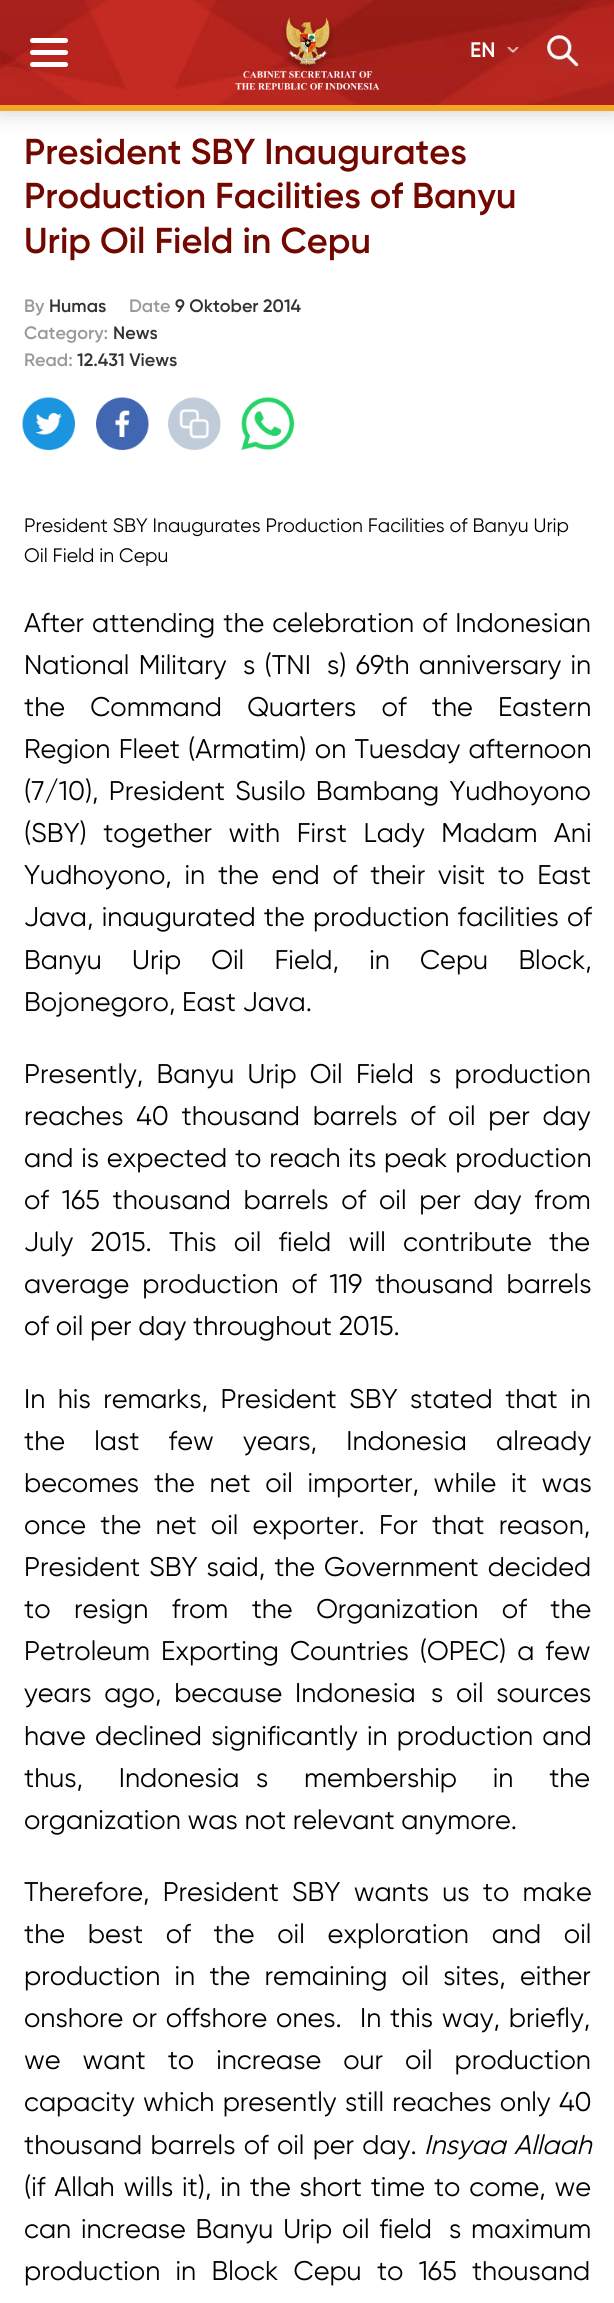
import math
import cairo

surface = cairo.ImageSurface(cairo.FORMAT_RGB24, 614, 2303)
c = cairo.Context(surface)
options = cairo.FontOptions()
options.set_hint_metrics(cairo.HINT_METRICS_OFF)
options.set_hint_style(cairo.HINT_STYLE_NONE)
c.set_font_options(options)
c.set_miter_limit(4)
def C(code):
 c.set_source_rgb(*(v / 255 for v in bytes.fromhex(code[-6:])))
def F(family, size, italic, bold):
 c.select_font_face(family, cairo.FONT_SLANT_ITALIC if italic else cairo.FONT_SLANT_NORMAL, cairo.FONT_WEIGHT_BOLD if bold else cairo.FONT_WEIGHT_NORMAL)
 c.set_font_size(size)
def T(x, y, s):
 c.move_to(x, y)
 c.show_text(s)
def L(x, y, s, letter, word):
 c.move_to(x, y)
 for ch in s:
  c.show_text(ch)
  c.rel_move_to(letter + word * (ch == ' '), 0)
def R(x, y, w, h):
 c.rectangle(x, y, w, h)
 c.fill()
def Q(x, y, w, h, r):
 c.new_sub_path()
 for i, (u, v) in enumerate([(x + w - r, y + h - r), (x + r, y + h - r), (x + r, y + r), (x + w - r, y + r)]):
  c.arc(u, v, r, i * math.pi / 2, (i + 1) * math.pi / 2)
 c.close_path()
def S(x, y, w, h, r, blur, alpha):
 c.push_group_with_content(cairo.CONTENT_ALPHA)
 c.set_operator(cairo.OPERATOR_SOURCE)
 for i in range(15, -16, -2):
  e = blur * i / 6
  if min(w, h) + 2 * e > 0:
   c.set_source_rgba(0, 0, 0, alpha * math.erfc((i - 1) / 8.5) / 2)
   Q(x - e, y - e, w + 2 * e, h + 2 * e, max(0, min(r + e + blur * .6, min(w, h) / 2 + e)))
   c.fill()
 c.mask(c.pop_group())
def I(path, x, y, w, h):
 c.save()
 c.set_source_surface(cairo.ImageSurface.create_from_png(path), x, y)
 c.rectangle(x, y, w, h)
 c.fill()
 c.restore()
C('ffffff')
c.paint()
C('000000')
S(0,0,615,111,0,11,.2)
I('1.png',0,0,614,105)
C('f5a623')
R(0,105,614,6)
C('ffffff')
Q(30,38,38,5,2.5)
c.fill()
Q(30,50,38,5,2.5)
c.fill()
Q(30,62,38,5,2.5)
c.fill()
I('2.png',235,17,145,73)
I('3.png',507,47,12,6)
F('Gilroy SemiBold',21,0,0)
T(470,57,'EN')
I('4.png',547,35,32,36)
F('Gilroy SemiBold',36,0,0)
C('720800')
T(24,164,'President SBY Inaugurates')
T(24,208,'Production Facilities of Banyu')
T(24,253,'Urip Oil Field in Cepu')
F('Gilroy SemiBold',18,0,0)
C('999999')
T(24,312,'By')
C('333333')
T(49,312,'Humas')
C('999999')
T(129,312,'Date')
C('333333')
T(175,312,'9 Oktober 2014')
C('999999')
T(24,339,'Category:')
C('333333')
T(113,339,'News')
C('999999')
T(24,366,'Read:')
C('333333')
T(77,366,'12.431 Views')
I('5.png',22,397,53,53)
I('6.png',96,397,53,53)
I('7.png',168,397,53,53)
I('8.png',241,397,53,53)
F('Gilroy',19.5,0,0)
C('000000')
T(24,532,'President SBY Inaugurates Production Facilities of Banyu Urip')
T(24,562,'Oil Field in Cepu')
F('Gilroy',27,0,0)
L(24,632,'After attending the celebration of Indonesian',0,1.25)
L(24,674,'National Military',0,2.5)
L(243,674,'s (TNI',0,2.5)
L(327,674,'s) 69th anniversary in',0,2.5)
L(24,716,'the Command Quarters of the Eastern',0,18.5)
L(24,758,'Region Fleet (Armatim) on Tuesday afternoon',0,1.5)
L(24,800,'(7/10), President Susilo Bambang Yudhoyono',0,3.5)
L(24,842,'(SBY) together with First Lady Madam Ani',0,9.75)
L(24,884,'Yudhoyono, in the end of their visit to East',0,6)
L(24,926,'Java, inaugurated the production facilities of',0,1.5)
L(24,969,'Banyu Urip Oil Field, in Cepu Block,',0,23.5)
T(24,1011,'Bojonegoro, East Java.')
L(24,1083,'Presently, Banyu Urip Oil Field',0,6.5)
L(429,1083,'s production',0,6.5)
L(24,1125,'reaches 40 thousand barrels of oil per day',0,6)
L(24,1167,'and is expected to reach its peak production',0,1)
L(24,1209,'of 165 thousand barrels of oil per day from',0,6)
L(24,1251,'July 2015. This oil field will contribute the',0,10.5)
L(24,1293,'average production of 119 thousand barrels',0,6.25)
T(24,1335,'of oil per day throughout 2015.')
L(24,1408,'In his remarks, President SBY stated that in',0,5.75)
L(24,1450,'the last few years, Indonesia already',0,22.5)
L(24,1492,'becomes the net oil importer, while it was',0,8)
L(24,1534,'once the net oil exporter. For that reason,',0,7.5)
L(24,1576,'President SBY said, the Government decided',0,2.25)
L(24,1618,'to resign from the Organization of the',0,16.75)
L(24,1660,'Petroleum Exporting Countries (OPEC) a few',0,4.25)
L(24,1702,'years ago, because Indonesia',0,6)
L(431,1702,'s oil sources',0,6)
L(24,1745,'have declined significantly in production and',0,2.5)
L(24,1787,'thus, Indonesia',0,29)
L(256,1787,'s membership in the',0,29)
T(24,1829,'organization was not relevant anymore.')
L(24,1901,'Therefore, President SBY wants us to make',0,6.5)
L(24,1943,'the best of the oil exploration and oil',0,16)
L(24,1985,'production in the remaining oil sites, either',0,7.5)
L(24,2027,'onshore or offshore ones.',0,2)
L(360,2027,'In this way, briefly,',0,2)
L(24,2069,'we want to increase our oil production',0,15.25)
L(24,2111,'capacity which presently still reaches only 40',0,1.5)
L(24,2154,'thousand barrels of oil per day.',0,1.5)
F('Gilroy',27,1,0)
L(424,2154,'Insyaa Allaah',0,1.5)
F('Gilroy',27,0,0)
L(24,2196,'(if Allah wills it), in the short time to come, we',0,2.1)
L(24,2238,'can increase Banyu Urip oil field',0,3)
L(449,2238,'s maximum',0,3)
L(24,2280,'production in Block Cepu to 165 thousand',0,8.5)
surface.write_to_png('o.png')
